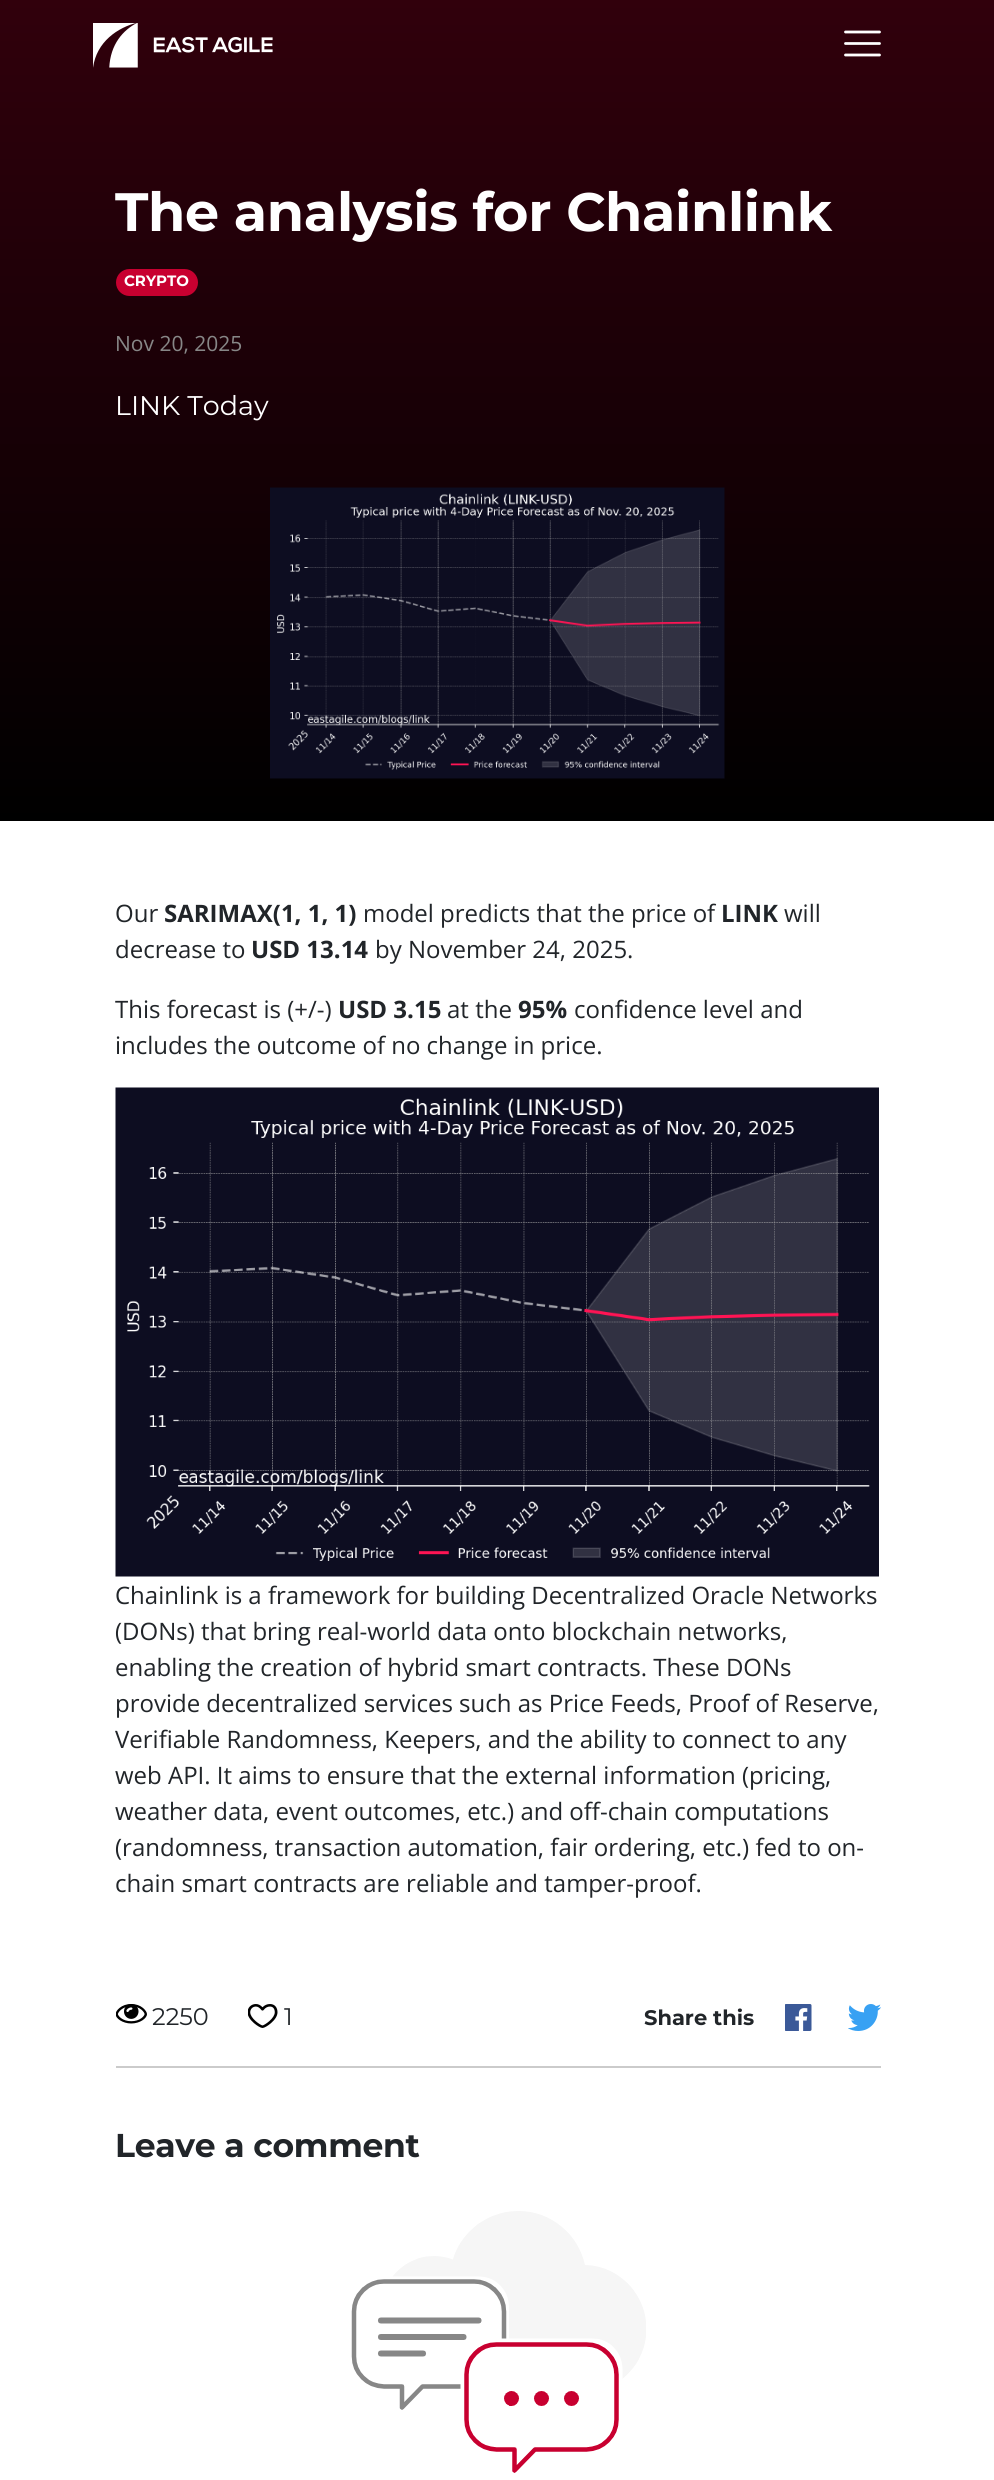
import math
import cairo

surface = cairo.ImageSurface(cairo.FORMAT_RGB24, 994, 2480)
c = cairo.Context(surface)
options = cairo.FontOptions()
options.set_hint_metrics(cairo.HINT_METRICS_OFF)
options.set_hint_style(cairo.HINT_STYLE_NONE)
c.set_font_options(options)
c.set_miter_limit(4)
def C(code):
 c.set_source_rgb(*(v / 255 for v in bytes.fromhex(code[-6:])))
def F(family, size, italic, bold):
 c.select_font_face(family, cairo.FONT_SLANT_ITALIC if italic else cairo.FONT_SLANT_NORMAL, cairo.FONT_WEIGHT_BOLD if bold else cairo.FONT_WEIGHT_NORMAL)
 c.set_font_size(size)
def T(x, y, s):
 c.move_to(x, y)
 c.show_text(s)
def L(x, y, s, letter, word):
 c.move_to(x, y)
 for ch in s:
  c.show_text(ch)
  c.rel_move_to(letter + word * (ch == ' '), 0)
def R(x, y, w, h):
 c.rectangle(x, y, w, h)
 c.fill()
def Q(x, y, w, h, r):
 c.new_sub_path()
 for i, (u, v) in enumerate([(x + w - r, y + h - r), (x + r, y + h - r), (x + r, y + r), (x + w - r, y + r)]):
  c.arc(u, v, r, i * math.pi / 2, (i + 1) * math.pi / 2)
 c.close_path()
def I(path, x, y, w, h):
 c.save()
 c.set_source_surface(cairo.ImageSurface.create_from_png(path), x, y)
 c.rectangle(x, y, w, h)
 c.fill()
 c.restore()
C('ffffff')
c.paint()
gradient = cairo.LinearGradient(497,0,497,821)
gradient.add_color_stop_rgba(0,0.192,0,0.047,1)
gradient.add_color_stop_rgba(1,0,0,0,1)
c.set_source(gradient)
R(0,0,994,821)
I('1.png',93,23,180,45)
c.new_path()
c.move_to(845.5,32)
c.line_to(879.5,32)
c.move_to(845.5,43.5)
c.line_to(879.5,43.5)
c.move_to(845.5,55)
c.line_to(879.5,55)
C('ffffff')
c.set_line_width(2.8)
c.set_line_cap(cairo.LINE_CAP_ROUND)
c.stroke()
F('Montserrat',54,0,1)
L(115,231,'The analysis for Chainlink',-.3,0)
C('c80030')
Q(116,269,82,27,13.5)
c.fill()
F('Montserrat',15,0,1)
C('ffffff')
T(124,286,'CRYPTO')
F('Open Sans',21,0,0)
C('878787')
T(115,351,'Nov 20, 2025')
F('Montserrat',27,0,0)
C('ffffff')
T(115,415,'LINK Today')
I('2.png',270,487,455,292)
F('Open Sans',24,0,0)
C('212529')
T(115,922,'Our')
F('Open Sans',24,0,1)
T(164,922,'SARIMAX(1, 1, 1)')
F('Open Sans',24,0,0)
T(363,922,'model predicts that the price of')
F('Open Sans',24,0,1)
T(721,922,'LINK')
F('Open Sans',24,0,0)
T(784,922,'will')
T(115,958,'decrease to')
F('Open Sans',24,0,1)
T(251,958,'USD 13.14')
F('Open Sans',24,0,0)
T(375,958,'by November 24, 2025.')
T(115,1018,'This forecast is (+/-)')
F('Open Sans',24,0,1)
T(338,1018,'USD 3.15')
F('Open Sans',24,0,0)
T(447,1018,'at the')
F('Open Sans',24,0,1)
T(518,1018,'95%')
F('Open Sans',24,0,0)
T(574,1018,'confidence level and')
T(115,1054,'includes the outcome of no change in price.')
I('3.png',115,1087,764,490)
T(115,1604,'Chainlink is a framework for building Decentralized Oracle Networks')
T(115,1640,'(DONs) that bring real-world data onto blockchain networks,')
T(115,1676,'enabling the creation of hybrid smart contracts. These DONs')
T(115,1712,'provide decentralized services such as Price Feeds, Proof of Reserve,')
T(115,1748,'Verifiable Randomness, Keepers, and the ability to connect to any')
T(115,1784,'web API. It aims to ensure that the external information (pricing,')
T(115,1820,'weather data, event outcomes, etc.) and off-chain computations')
T(115,1856,'(randomness, transaction automation, fair ordering, etc.) fed to on-')
T(115,1892,'chain smart contracts are reliable and tamper-proof.')
I('4.png',116,2004,31,20)
F('Montserrat',24,0,0)
T(152,2025,'2250')
I('5.png',248,2004,30,24)
T(284,2025,'1')
F('Montserrat',21,0,1)
T(644,2025,'Share this')
I('6.png',785,2004,27,27)
I('7.png',848,2004,33,27)
C('cbcbcb')
R(116,2066,765,2)
F('Montserrat',33,0,1)
C('212529')
L(115,2157,'Leave a comment',-.3,0)
I('8.png',351,2211,295,262)
surface.write_to_png('o.png')
